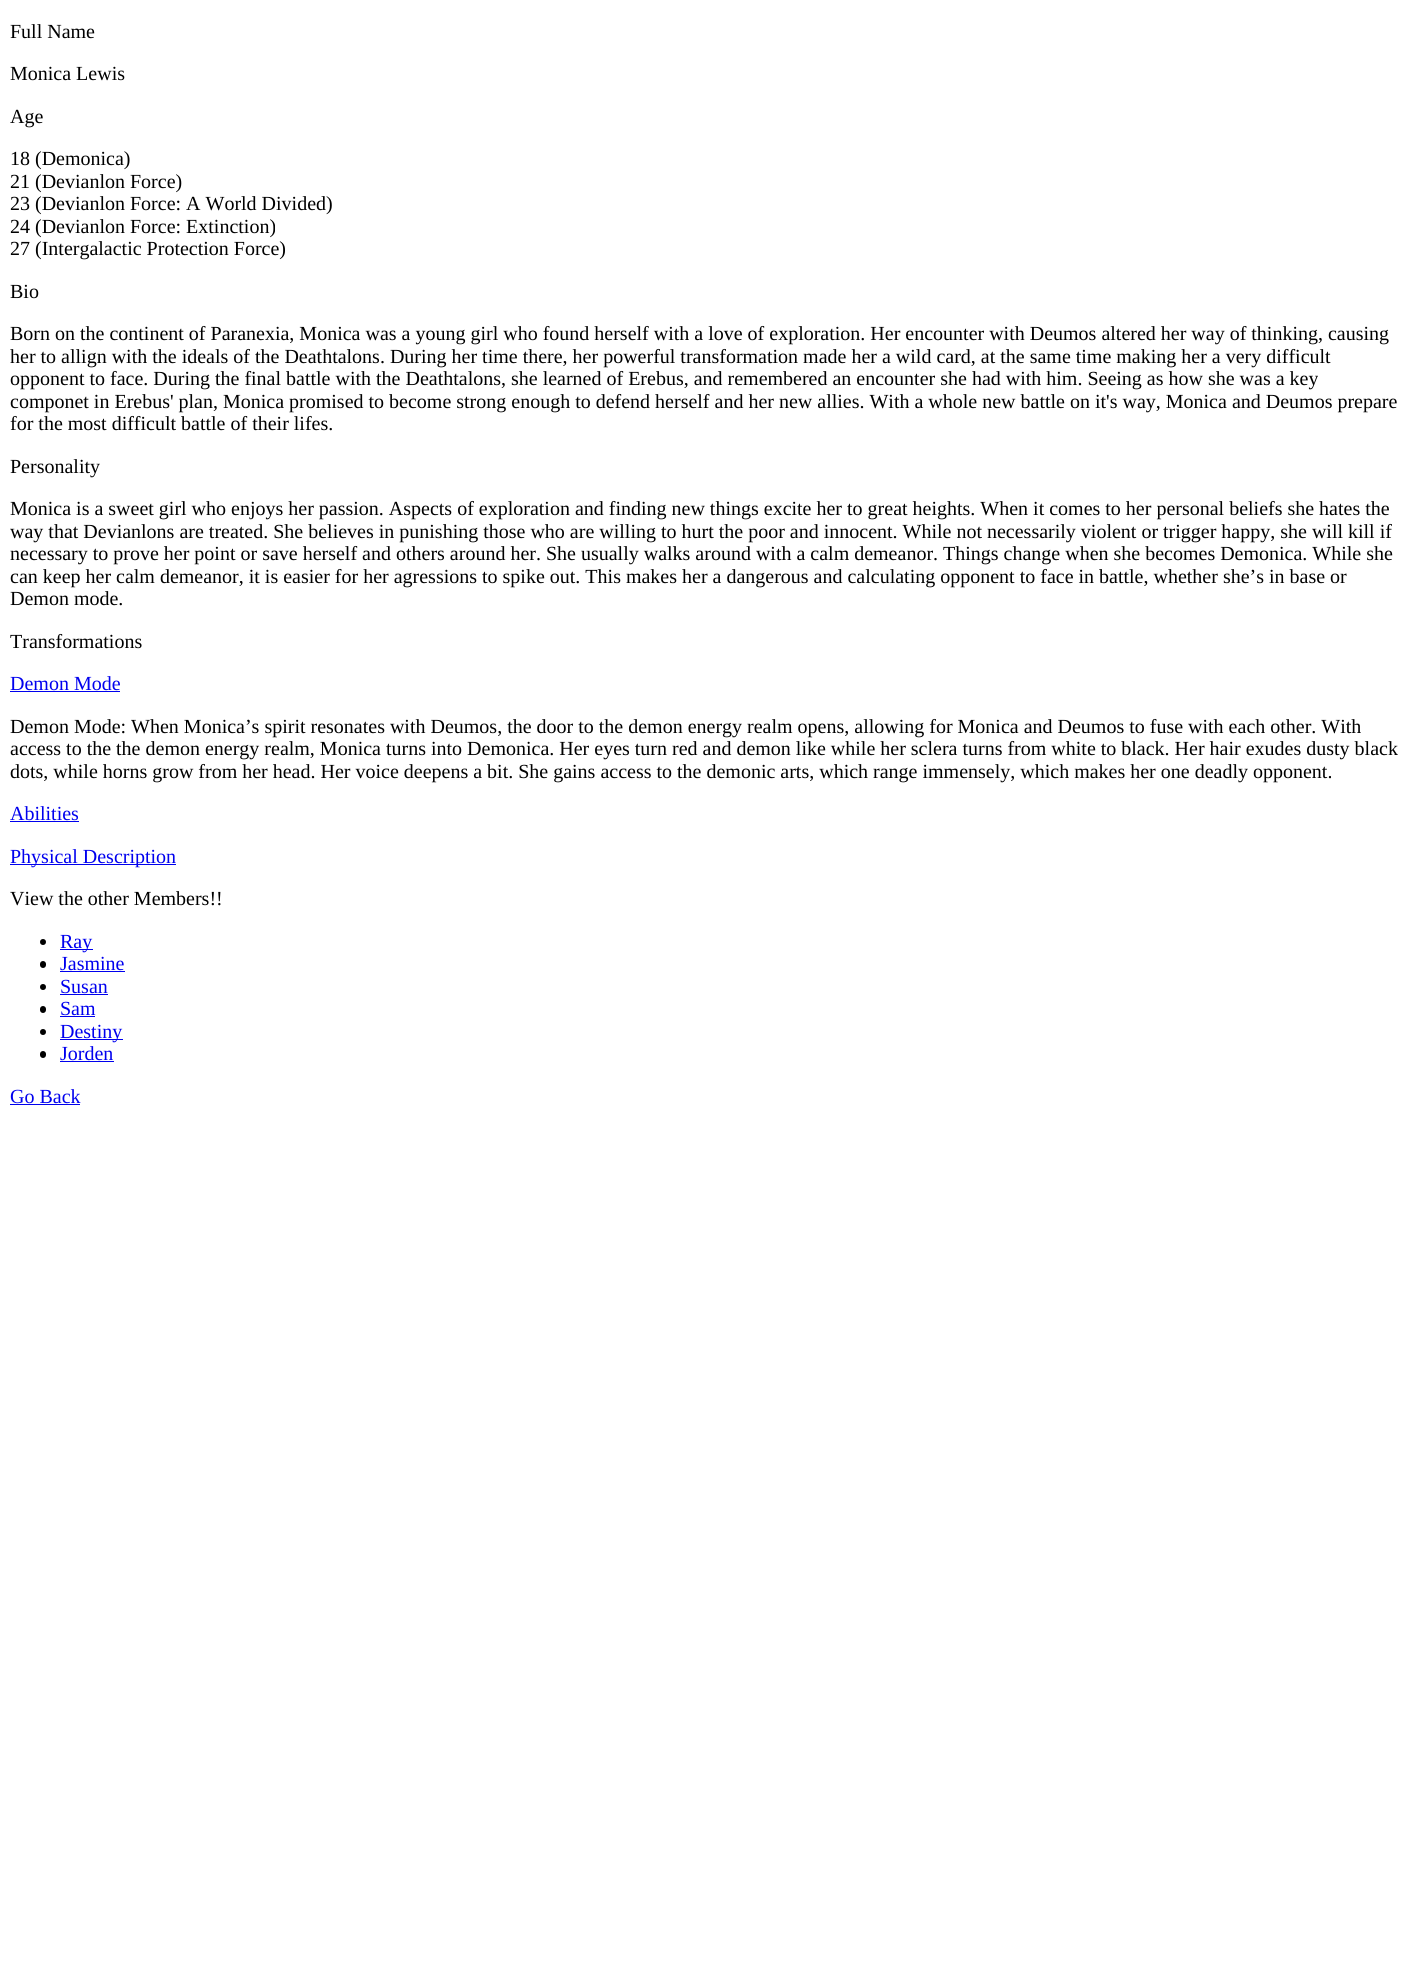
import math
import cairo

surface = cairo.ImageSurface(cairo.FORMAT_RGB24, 1408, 1981)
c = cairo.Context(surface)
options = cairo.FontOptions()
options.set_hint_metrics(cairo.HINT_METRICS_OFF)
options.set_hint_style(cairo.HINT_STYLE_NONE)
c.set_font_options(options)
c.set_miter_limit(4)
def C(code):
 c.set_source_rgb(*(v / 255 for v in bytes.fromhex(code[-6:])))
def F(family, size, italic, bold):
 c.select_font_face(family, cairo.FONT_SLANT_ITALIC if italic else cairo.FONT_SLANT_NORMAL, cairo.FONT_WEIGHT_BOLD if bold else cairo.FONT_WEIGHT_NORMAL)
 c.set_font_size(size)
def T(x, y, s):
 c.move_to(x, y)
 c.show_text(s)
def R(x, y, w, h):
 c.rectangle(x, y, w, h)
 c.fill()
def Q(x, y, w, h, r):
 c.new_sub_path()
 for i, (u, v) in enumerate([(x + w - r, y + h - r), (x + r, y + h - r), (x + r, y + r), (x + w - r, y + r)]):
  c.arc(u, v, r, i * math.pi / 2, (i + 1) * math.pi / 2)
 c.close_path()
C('ffffff')
c.paint()
F('Liberation Serif',20,0,0)
C('000000')
T(10,38,'Full Name')
T(10,80,'Monica Lewis')
T(10,123,'Age')
T(10,165,'18 (Demonica)')
T(10,188,'21 (Devianlon Force)')
T(10,210,'23 (Devianlon Force: A World Divided)')
T(10,233,'24 (Devianlon Force: Extinction)')
T(10,255,'27 (Intergalactic Protection Force)')
T(10,298,'Bio')
T(10,340,'Born on the continent of Paranexia, Monica was a young girl who found herself with a love of exploration. Her encounter with Deumos altered her way of thinking, causing')
T(10,363,'her to allign with the ideals of the Deathtalons. During her time there, her powerful transformation made her a wild card, at the same time making her a very difficult')
T(10,385,'opponent to face. During the final battle with the Deathtalons, she learned of Erebus, and remembered an encounter she had with him. Seeing as how she was a key')
T(10,408,'componet in Erebus\' plan, Monica promised to become strong enough to defend herself and her new allies. With a whole new battle on it\'s way, Monica and Deumos prepare')
T(10,430,'for the most difficult battle of their lifes.')
T(10,473,'Personality')
T(10,515,'Monica is a sweet girl who enjoys her passion. Aspects of exploration and finding new things excite her to great heights. When it comes to her personal beliefs she hates the')
T(10,538,'way that Devianlons are treated. She believes in punishing those who are willing to hurt the poor and innocent. While not necessarily violent or trigger happy, she will kill if')
T(10,560,'necessary to prove her point or save herself and others around her. She usually walks around with a calm demeanor. Things change when she becomes Demonica. While she')
T(10,583,'can keep her calm demeanor, it is easier for her agressions to spike out. This makes her a dangerous and calculating opponent to face in battle, whether she’s in base or')
T(10,605,'Demon mode.')
T(10,648,'Transformations')
C('0000ee')
T(10,690,'Demon Mode')
R(10,691,110,1)
C('000000')
T(10,733,'Demon Mode: When Monica’s spirit resonates with Deumos, the door to the demon energy realm opens, allowing for Monica and Deumos to fuse with each other. With')
T(10,755,'access to the the demon energy realm, Monica turns into Demonica. Her eyes turn red and demon like while her sclera turns from white to black. Her hair exudes dusty black')
T(10,778,'dots, while horns grow from her head. Her voice deepens a bit. She gains access to the demonic arts, which range immensely, which makes her one deadly opponent.')
C('0000ee')
T(10,820,'Abilities')
R(10,821,69,1)
R(10,864,166,1)
T(10,863,'Physical Description')
C('000000')
T(10,905,'View the other Members!!')
c.new_path()
c.arc(43,942,3,0,2 * math.pi)
c.fill()
C('0000ee')
R(60,949,33,1)
T(60,948,'Ray')
C('000000')
Q(40,961,6,7,3)
c.fill()
C('0000ee')
T(60,970,'Jasmine')
R(60,971,65,1)
C('000000')
c.new_path()
c.arc(43,987,3,0,2 * math.pi)
c.fill()
C('0000ee')
T(60,993,'Susan')
R(60,994,48,1)
C('000000')
Q(40,1006,6,7,3)
c.fill()
C('0000ee')
T(60,1015,'Sam')
R(60,1016,35,1)
C('000000')
c.new_path()
c.arc(43,1032,3,0,2 * math.pi)
c.fill()
C('0000ee')
R(60,1039,63,1)
T(60,1038,'Destiny')
C('000000')
Q(40,1051,6,7,3)
c.fill()
C('0000ee')
T(60,1060,'Jorden')
R(60,1061,54,1)
T(10,1103,'Go Back')
R(10,1104,70,1)
surface.write_to_png('o.png')
